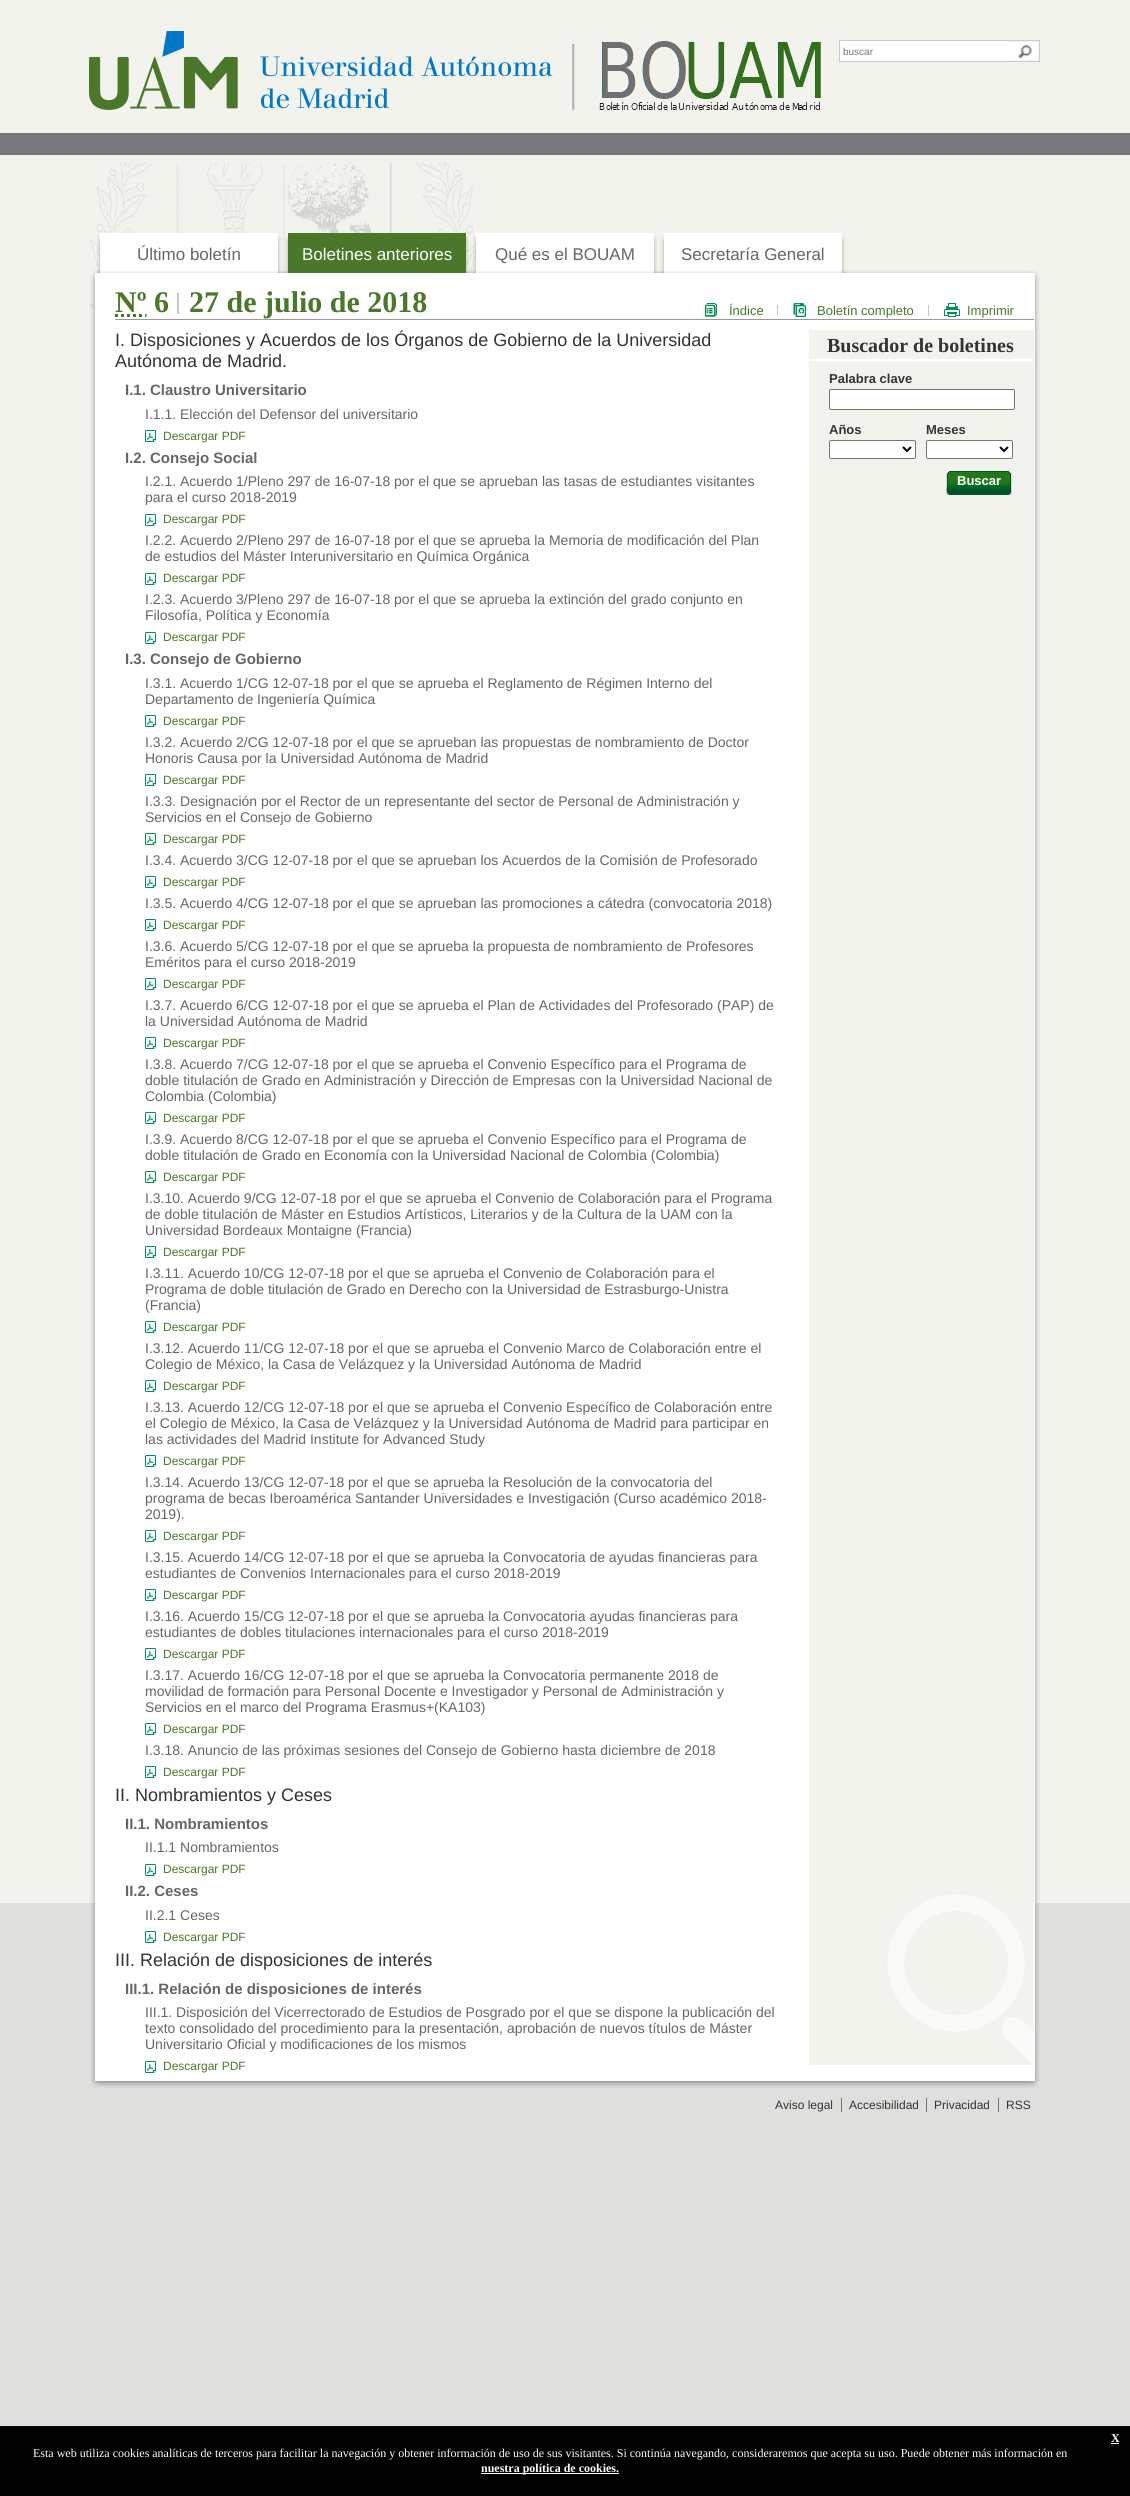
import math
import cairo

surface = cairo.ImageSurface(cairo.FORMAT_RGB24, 1130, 2496)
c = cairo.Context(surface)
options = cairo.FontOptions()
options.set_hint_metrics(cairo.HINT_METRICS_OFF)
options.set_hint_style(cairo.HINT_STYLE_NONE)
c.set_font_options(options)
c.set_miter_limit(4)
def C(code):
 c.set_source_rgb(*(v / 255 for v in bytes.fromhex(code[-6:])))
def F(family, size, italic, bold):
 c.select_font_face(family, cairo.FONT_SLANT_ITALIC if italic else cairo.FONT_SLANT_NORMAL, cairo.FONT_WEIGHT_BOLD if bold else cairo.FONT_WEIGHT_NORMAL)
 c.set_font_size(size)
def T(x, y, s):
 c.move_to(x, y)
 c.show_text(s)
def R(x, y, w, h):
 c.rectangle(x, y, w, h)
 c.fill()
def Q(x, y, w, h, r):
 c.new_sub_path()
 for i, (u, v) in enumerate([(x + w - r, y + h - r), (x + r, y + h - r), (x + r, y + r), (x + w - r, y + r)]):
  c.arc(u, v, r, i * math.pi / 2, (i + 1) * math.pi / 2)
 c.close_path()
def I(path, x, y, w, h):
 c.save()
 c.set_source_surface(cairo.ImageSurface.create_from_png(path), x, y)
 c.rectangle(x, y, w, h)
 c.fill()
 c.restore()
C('dfdfdd')
c.paint()
C('f3f3ee')
R(0,0,1130,1903)
C('76787b')
R(0,133,1130,22)
I('1.png',89,31,732,79)
C('ffffff')
R(840,41,170,20)
C('cccccc')
R(839,40,201,1)
R(839,61,201,1)
R(839,40,1,22)
F('Liberation Sans',10,0,0)
C('757575')
T(843,55,'buscar')
I('2.png',1010,41,30,20)
I('3.png',89,163,392,298)
I('8.png',90,270,950,1811)
I('4.png',95,233,188,40)
F('Liberation Sans',17,0,0)
C('666666')
T(137,260,'Último boletín')
I('5.png',283,236,188,37)
C('4a7729')
R(288,233,178,40)
C('ffffff')
T(302,260,'Boletines anteriores')
I('6.png',471,233,188,40)
C('666666')
T(495,260,'Qué es el BOUAM')
I('7.png',659,233,188,40)
T(681,260,'Secretaría General')
C('999999')
R(115,319,919,1)
F('Liberation Serif',30,0,1)
C('4a7729')
T(115,312,'Nº 6')
c.new_path()
c.move_to(115,315.5)
c.line_to(146.5,315.5)
c.set_line_width(3)
c.set_dash([3,3])
c.stroke()
T(189,312,'27 de julio de 2018')
C('c7c7c7')
R(177,293,2,21)
R(777,305,1,11)
I('9.png',705,303,12,14)
F('Liberation Sans',13,0,0)
C('4a7729')
T(729,315,'Índice')
C('c7c7c7')
R(928,305,1,11)
I('10.png',793,303,13,14)
C('4a7729')
T(817,315,'Boletín completo')
I('11.png',944,303,16,14)
T(967,315,'Imprimir')
F('Liberation Sans',18,0,0)
C('333333')
T(115,346,'I. Disposiciones y Acuerdos de los Órganos de Gobierno de la Universidad')
T(115,367,'Autónoma de Madrid.')
F('Liberation Sans',15,0,1)
C('666666')
T(125,395,'I.1. Claustro Universitario')
F('Liberation Sans',14,0,0)
T(145,419,'I.1.1. Elección del Defensor del universitario')
I('12.png',145,430,11,12)
F('Liberation Sans',12,0,0)
C('4a7729')
T(163,440,'Descargar PDF')
F('Liberation Sans',15,0,1)
C('666666')
T(125,463,'I.2. Consejo Social')
F('Liberation Sans',14,0,0)
T(145,486,'I.2.1. Acuerdo 1/Pleno 297 de 16-07-18 por el que se aprueban las tasas de estudiantes visitantes')
T(145,502,'para el curso 2018-2019')
I('12.png',145,514,11,12)
F('Liberation Sans',12,0,0)
C('4a7729')
T(163,523,'Descargar PDF')
F('Liberation Sans',14,0,0)
C('666666')
T(145,545,'I.2.2. Acuerdo 2/Pleno 297 de 16-07-18 por el que se aprueba la Memoria de modificación del Plan')
T(145,561,'de estudios del Máster Interuniversitario en Química Orgánica')
I('12.png',145,573,11,12)
F('Liberation Sans',12,0,0)
C('4a7729')
T(163,582,'Descargar PDF')
F('Liberation Sans',14,0,0)
C('666666')
T(145,604,'I.2.3. Acuerdo 3/Pleno 297 de 16-07-18 por el que se aprueba la extinción del grado conjunto en')
T(145,620,'Filosofía, Política y Economía')
I('12.png',145,632,11,12)
F('Liberation Sans',12,0,0)
C('4a7729')
T(163,641,'Descargar PDF')
F('Liberation Sans',15,0,1)
C('666666')
T(125,664,'I.3. Consejo de Gobierno')
F('Liberation Sans',14,0,0)
T(145,688,'I.3.1. Acuerdo 1/CG 12-07-18 por el que se aprueba el Reglamento de Régimen Interno del')
T(145,704,'Departamento de Ingeniería Química')
I('12.png',145,715,11,12)
F('Liberation Sans',12,0,0)
C('4a7729')
T(163,725,'Descargar PDF')
F('Liberation Sans',14,0,0)
C('666666')
T(145,747,'I.3.2. Acuerdo 2/CG 12-07-18 por el que se aprueban las propuestas de nombramiento de Doctor')
T(145,763,'Honoris Causa por la Universidad Autónoma de Madrid')
I('12.png',145,774,11,12)
F('Liberation Sans',12,0,0)
C('4a7729')
T(163,784,'Descargar PDF')
F('Liberation Sans',14,0,0)
C('666666')
T(145,806,'I.3.3. Designación por el Rector de un representante del sector de Personal de Administración y')
T(145,822,'Servicios en el Consejo de Gobierno')
I('12.png',145,833,11,12)
F('Liberation Sans',12,0,0)
C('4a7729')
T(163,843,'Descargar PDF')
F('Liberation Sans',14,0,0)
C('666666')
T(145,865,'I.3.4. Acuerdo 3/CG 12-07-18 por el que se aprueban los Acuerdos de la Comisión de Profesorado')
I('12.png',145,876,11,12)
F('Liberation Sans',12,0,0)
C('4a7729')
T(163,886,'Descargar PDF')
F('Liberation Sans',14,0,0)
C('666666')
T(145,908,'I.3.5. Acuerdo 4/CG 12-07-18 por el que se aprueban las promociones a cátedra (convocatoria 2018)')
I('12.png',145,919,11,12)
F('Liberation Sans',12,0,0)
C('4a7729')
T(163,929,'Descargar PDF')
F('Liberation Sans',14,0,0)
C('666666')
T(145,951,'I.3.6. Acuerdo 5/CG 12-07-18 por el que se aprueba la propuesta de nombramiento de Profesores')
T(145,967,'Eméritos para el curso 2018-2019')
I('12.png',145,978,11,12)
F('Liberation Sans',12,0,0)
C('4a7729')
T(163,988,'Descargar PDF')
F('Liberation Sans',14,0,0)
C('666666')
T(145,1010,'I.3.7. Acuerdo 6/CG 12-07-18 por el que se aprueba el Plan de Actividades del Profesorado (PAP) de')
T(145,1026,'la Universidad Autónoma de Madrid')
I('12.png',145,1037,11,12)
F('Liberation Sans',12,0,0)
C('4a7729')
T(163,1047,'Descargar PDF')
F('Liberation Sans',14,0,0)
C('666666')
T(145,1069,'I.3.8. Acuerdo 7/CG 12-07-18 por el que se aprueba el Convenio Específico para el Programa de')
T(145,1085,'doble titulación de Grado en Administración y Dirección de Empresas con la Universidad Nacional de')
T(145,1101,'Colombia (Colombia)')
I('12.png',145,1112,11,12)
F('Liberation Sans',12,0,0)
C('4a7729')
T(163,1122,'Descargar PDF')
F('Liberation Sans',14,0,0)
C('666666')
T(145,1144,'I.3.9. Acuerdo 8/CG 12-07-18 por el que se aprueba el Convenio Específico para el Programa de')
T(145,1160,'doble titulación de Grado en Economía con la Universidad Nacional de Colombia (Colombia)')
I('12.png',145,1171,11,12)
F('Liberation Sans',12,0,0)
C('4a7729')
T(163,1181,'Descargar PDF')
F('Liberation Sans',14,0,0)
C('666666')
T(145,1203,'I.3.10. Acuerdo 9/CG 12-07-18 por el que se aprueba el Convenio de Colaboración para el Programa')
T(145,1219,'de doble titulación de Máster en Estudios Artísticos, Literarios y de la Cultura de la UAM con la')
T(145,1235,'Universidad Bordeaux Montaigne (Francia)')
I('12.png',145,1246,11,12)
F('Liberation Sans',12,0,0)
C('4a7729')
T(163,1256,'Descargar PDF')
F('Liberation Sans',14,0,0)
C('666666')
T(145,1278,'I.3.11. Acuerdo 10/CG 12-07-18 por el que se aprueba el Convenio de Colaboración para el')
T(145,1294,'Programa de doble titulación de Grado en Derecho con la Universidad de Estrasburgo-Unistra')
T(145,1310,'(Francia)')
I('12.png',145,1321,11,12)
F('Liberation Sans',12,0,0)
C('4a7729')
T(163,1331,'Descargar PDF')
F('Liberation Sans',14,0,0)
C('666666')
T(145,1353,'I.3.12. Acuerdo 11/CG 12-07-18 por el que se aprueba el Convenio Marco de Colaboración entre el')
T(145,1369,'Colegio de México, la Casa de Velázquez y la Universidad Autónoma de Madrid')
I('12.png',145,1380,11,12)
F('Liberation Sans',12,0,0)
C('4a7729')
T(163,1390,'Descargar PDF')
F('Liberation Sans',14,0,0)
C('666666')
T(145,1412,'I.3.13. Acuerdo 12/CG 12-07-18 por el que se aprueba el Convenio Específico de Colaboración entre')
T(145,1428,'el Colegio de México, la Casa de Velázquez y la Universidad Autónoma de Madrid para participar en')
T(145,1444,'las actividades del Madrid Institute for Advanced Study')
I('12.png',145,1455,11,12)
F('Liberation Sans',12,0,0)
C('4a7729')
T(163,1465,'Descargar PDF')
F('Liberation Sans',14,0,0)
C('666666')
T(145,1487,'I.3.14. Acuerdo 13/CG 12-07-18 por el que se aprueba la Resolución de la convocatoria del')
T(145,1503,'programa de becas Iberoamérica Santander Universidades e Investigación (Curso académico 2018-')
T(145,1519,'2019).')
I('12.png',145,1530,11,12)
F('Liberation Sans',12,0,0)
C('4a7729')
T(163,1540,'Descargar PDF')
F('Liberation Sans',14,0,0)
C('666666')
T(145,1562,'I.3.15. Acuerdo 14/CG 12-07-18 por el que se aprueba la Convocatoria de ayudas financieras para')
T(145,1578,'estudiantes de Convenios Internacionales para el curso 2018-2019')
I('12.png',145,1589,11,12)
F('Liberation Sans',12,0,0)
C('4a7729')
T(163,1599,'Descargar PDF')
F('Liberation Sans',14,0,0)
C('666666')
T(145,1621,'I.3.16. Acuerdo 15/CG 12-07-18 por el que se aprueba la Convocatoria ayudas financieras para')
T(145,1637,'estudiantes de dobles titulaciones internacionales para el curso 2018-2019')
I('12.png',145,1648,11,12)
F('Liberation Sans',12,0,0)
C('4a7729')
T(163,1658,'Descargar PDF')
F('Liberation Sans',14,0,0)
C('666666')
T(145,1680,'I.3.17. Acuerdo 16/CG 12-07-18 por el que se aprueba la Convocatoria permanente 2018 de')
T(145,1696,'movilidad de formación para Personal Docente e Investigador y Personal de Administración y')
T(145,1712,'Servicios en el marco del Programa Erasmus+(KA103)')
I('12.png',145,1723,11,12)
F('Liberation Sans',12,0,0)
C('4a7729')
T(163,1733,'Descargar PDF')
F('Liberation Sans',14,0,0)
C('666666')
T(145,1755,'I.3.18. Anuncio de las próximas sesiones del Consejo de Gobierno hasta diciembre de 2018')
I('12.png',145,1766,11,12)
F('Liberation Sans',12,0,0)
C('4a7729')
T(163,1776,'Descargar PDF')
F('Liberation Sans',18,0,0)
C('333333')
T(115,1801,'II. Nombramientos y Ceses')
F('Liberation Sans',15,0,1)
C('666666')
T(125,1829,'II.1. Nombramientos')
F('Liberation Sans',14,0,0)
T(145,1852,'II.1.1 Nombramientos')
I('12.png',145,1864,11,12)
F('Liberation Sans',12,0,0)
C('4a7729')
T(163,1873,'Descargar PDF')
F('Liberation Sans',15,0,1)
C('666666')
T(125,1896,'II.2. Ceses')
F('Liberation Sans',14,0,0)
T(145,1920,'II.2.1 Ceses')
I('12.png',145,1931,11,12)
F('Liberation Sans',12,0,0)
C('4a7729')
T(163,1941,'Descargar PDF')
F('Liberation Sans',18,0,0)
C('333333')
T(115,1966,'III. Relación de disposiciones de interés')
F('Liberation Sans',15,0,1)
C('666666')
T(125,1994,'III.1. Relación de disposiciones de interés')
F('Liberation Sans',14,0,0)
T(145,2017,'III.1. Disposición del Vicerrectorado de Estudios de Posgrado por el que se dispone la publicación del')
T(145,2033,'texto consolidado del procedimiento para la presentación, aprobación de nuevos títulos de Máster')
T(145,2049,'Universitario Oficial y modificaciones de los mismos')
I('12.png',145,2061,11,12)
F('Liberation Sans',12,0,0)
C('4a7729')
T(163,2070,'Descargar PDF')
C('f3f3ee')
R(809,330,225,1735)
I('13.png',887,1894,147,170)
C('ffffff')
R(809,359,225,2)
F('Liberation Serif',20,0,1)
C('333333')
T(827,352,'Buscador de boletines')
F('Liberation Sans',13,0,1)
T(829,383,'Palabra clave')
C('ffffff')
Q(829.5,389.5,185,20,1.5)
c.fill_preserve()
C('767676')
c.set_line_width(1)
c.set_dash([])
c.stroke()
C('333333')
T(829,434,'Años')
C('ffffff')
Q(829.5,440.5,86,18,1.5)
c.fill_preserve()
C('767676')
c.stroke()
c.new_path()
c.move_to(903,447)
c.line_to(907,451)
c.line_to(911,447)
C('000000')
c.set_line_width(2)
c.stroke()
C('333333')
T(926,434,'Meses')
C('ffffff')
Q(926.5,440.5,86,18,1.5)
c.fill_preserve()
C('767676')
c.set_line_width(1)
c.stroke()
c.new_path()
c.move_to(1000,447)
c.line_to(1004,451)
c.line_to(1008,447)
C('000000')
c.set_line_width(2)
c.stroke()
I('14.png',946,471,66,24)
C('ffffff')
T(957,485,'Buscar')
I('15.png',91,2081,948,7)
C('757474')
R(841,2098,1,14)
F('Liberation Sans',12,0,0)
C('333333')
T(775,2109,'Aviso legal')
C('757474')
R(926,2098,1,14)
C('333333')
T(849,2109,'Accesibilidad')
C('757474')
R(998,2098,1,14)
C('333333')
T(934,2109,'Privacidad')
T(1006,2109,'RSS')
C('000000')
R(0,2426,1130,70)
F('Liberation Serif',12,0,1)
C('ffffff')
T(1111,2442,'X')
R(1111,2443,8,1)
F('Liberation Serif',12,0,0)
T(33,2457,'Esta web utiliza cookies analíticas de terceros para facilitar la navegación y obtener información de uso de sus visitantes. Si continúa navegando, consideraremos que acepta su uso. Puede obtener más información en')
R(481,2473,138,1)
F('Liberation Serif',12,0,1)
T(481,2472,'nuestra política de cookies.')
surface.write_to_png('o.png')
